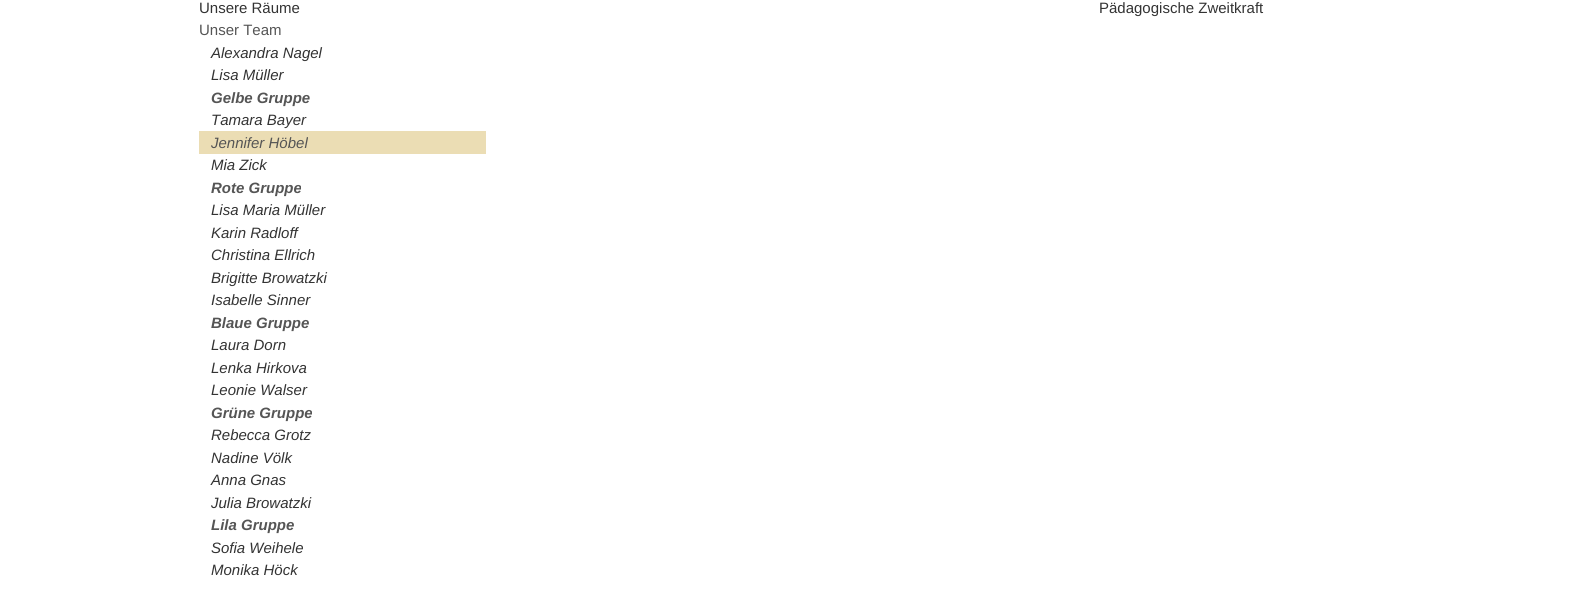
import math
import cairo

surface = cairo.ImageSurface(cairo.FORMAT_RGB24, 1585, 594)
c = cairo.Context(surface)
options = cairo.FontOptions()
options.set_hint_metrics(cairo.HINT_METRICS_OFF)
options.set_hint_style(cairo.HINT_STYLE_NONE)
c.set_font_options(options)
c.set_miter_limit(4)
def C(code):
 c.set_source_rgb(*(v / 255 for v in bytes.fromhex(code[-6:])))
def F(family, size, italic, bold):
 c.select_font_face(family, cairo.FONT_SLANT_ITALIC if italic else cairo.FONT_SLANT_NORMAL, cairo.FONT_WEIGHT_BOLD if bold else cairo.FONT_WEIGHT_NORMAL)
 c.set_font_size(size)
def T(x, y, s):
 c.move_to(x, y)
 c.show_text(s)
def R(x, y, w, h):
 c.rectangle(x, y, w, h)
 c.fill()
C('ffffff')
c.paint()
F('Liberation Sans',15,0,0)
C('333333')
T(199,13,'Unsere Räume')
C('555555')
T(199,35,'Unser Team')
F('Liberation Sans',15,1,0)
C('333333')
T(211,58,'Alexandra Nagel')
T(211,80,'Lisa Müller')
F('Liberation Sans',15,1,1)
C('555555')
T(211,103,'Gelbe Gruppe')
F('Liberation Sans',15,1,0)
C('333333')
T(211,125,'Tamara Bayer')
C('ebddb4')
R(199,131,287,23)
C('555555')
T(211,148,'Jennifer Höbel')
C('333333')
T(211,170,'Mia Zick')
F('Liberation Sans',15,1,1)
C('555555')
T(211,193,'Rote Gruppe')
F('Liberation Sans',15,1,0)
C('333333')
T(211,215,'Lisa Maria Müller')
T(211,238,'Karin Radloff')
T(211,260,'Christina Ellrich')
T(211,283,'Brigitte Browatzki')
T(211,305,'Isabelle Sinner')
F('Liberation Sans',15,1,1)
C('555555')
T(211,328,'Blaue Gruppe')
F('Liberation Sans',15,1,0)
C('333333')
T(211,350,'Laura Dorn')
T(211,373,'Lenka Hirkova')
T(211,395,'Leonie Walser')
F('Liberation Sans',15,1,1)
C('555555')
T(211,418,'Grüne Gruppe')
F('Liberation Sans',15,1,0)
C('333333')
T(211,440,'Rebecca Grotz')
T(211,463,'Nadine Völk')
T(211,485,'Anna Gnas')
T(211,508,'Julia Browatzki')
F('Liberation Sans',15,1,1)
C('555555')
T(211,530,'Lila Gruppe')
F('Liberation Sans',15,1,0)
C('333333')
T(211,553,'Sofia Weihele')
T(211,575,'Monika Höck')
F('Liberation Sans',15,0,0)
T(1099,13,'Pädagogische Zweitkraft')
surface.write_to_png('o.png')
